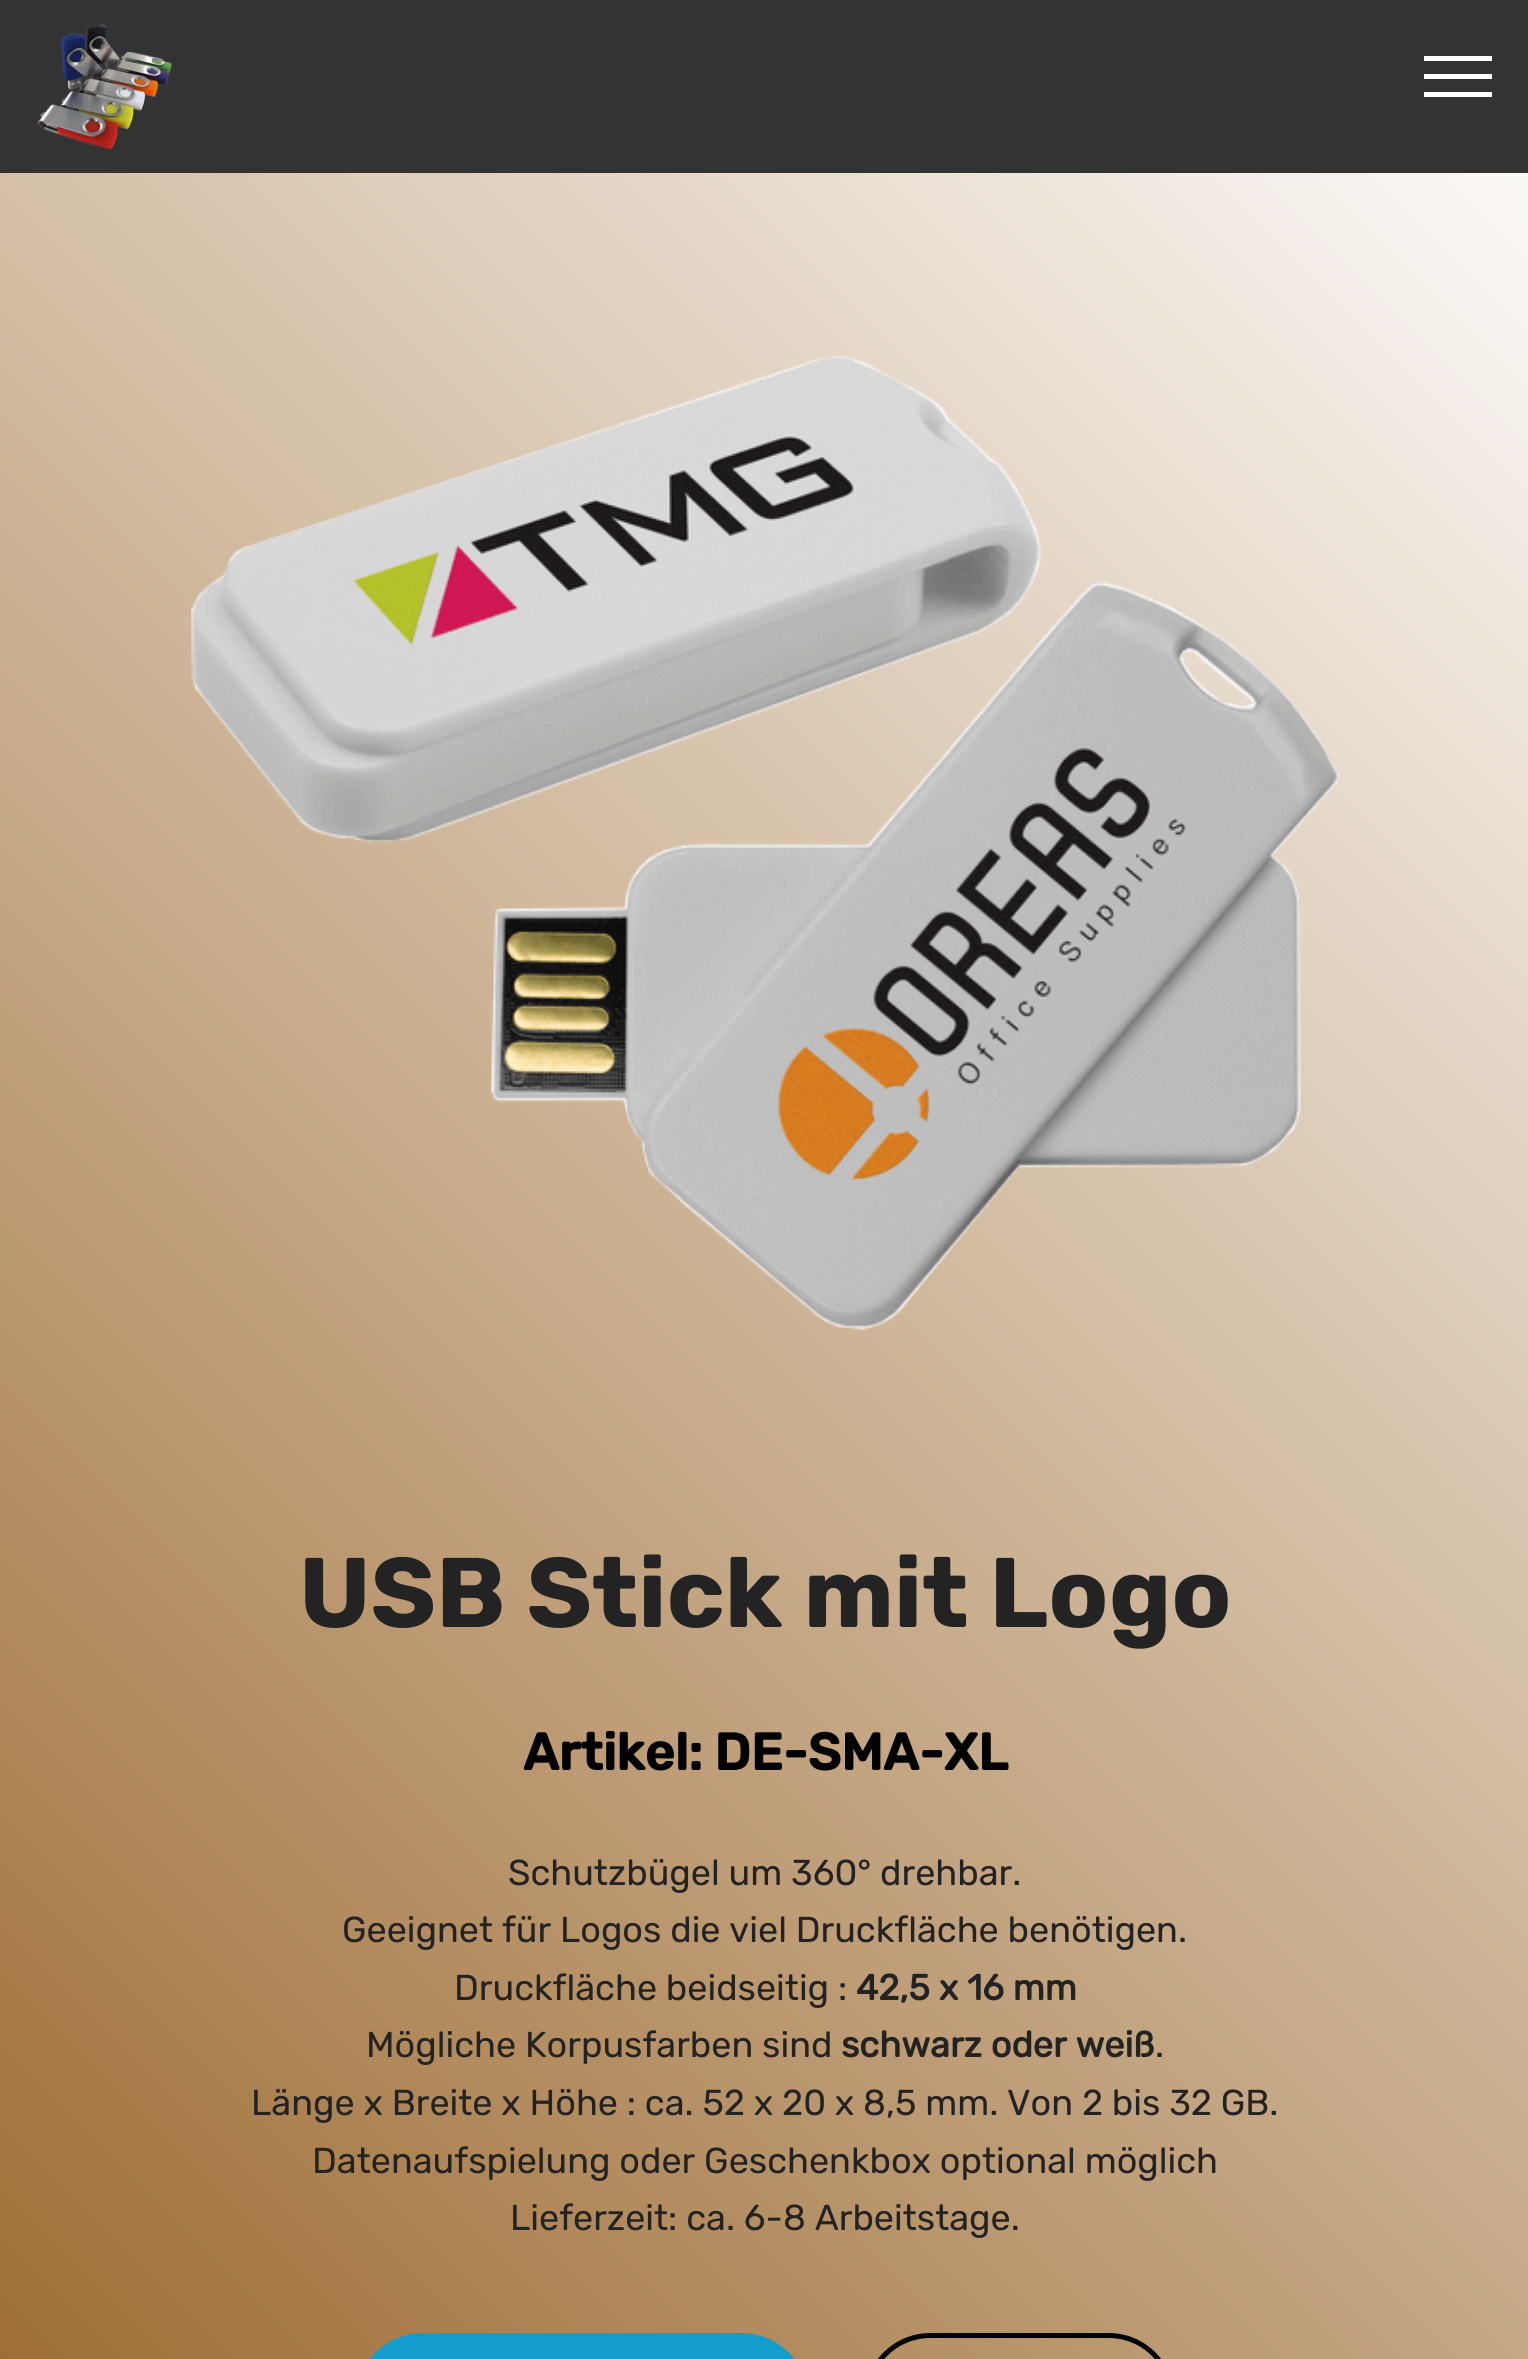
import math
import cairo

surface = cairo.ImageSurface(cairo.FORMAT_RGB24, 1528, 2359)
c = cairo.Context(surface)
options = cairo.FontOptions()
options.set_hint_metrics(cairo.HINT_METRICS_OFF)
options.set_hint_style(cairo.HINT_STYLE_NONE)
c.set_font_options(options)
c.set_miter_limit(4)
def C(code):
 c.set_source_rgb(*(v / 255 for v in bytes.fromhex(code[-6:])))
def F(family, size, italic, bold):
 c.select_font_face(family, cairo.FONT_SLANT_ITALIC if italic else cairo.FONT_SLANT_NORMAL, cairo.FONT_WEIGHT_BOLD if bold else cairo.FONT_WEIGHT_NORMAL)
 c.set_font_size(size)
def T(x, y, s):
 c.move_to(x, y)
 c.show_text(s)
def R(x, y, w, h):
 c.rectangle(x, y, w, h)
 c.fill()
def Q(x, y, w, h, r):
 c.new_sub_path()
 for i, (u, v) in enumerate([(x + w - r, y + h - r), (x + r, y + h - r), (x + r, y + r), (x + w - r, y + r)]):
  c.arc(u, v, r, i * math.pi / 2, (i + 1) * math.pi / 2)
 c.close_path()
def I(path, x, y, w, h):
 c.save()
 c.set_source_surface(cairo.ImageSurface.create_from_png(path), x, y)
 c.rectangle(x, y, w, h)
 c.fill()
 c.restore()
C('ffffff')
c.paint()
C('333333')
R(0,0,1528,173)
I('1.png',37,24,135,126)
C('ffffff')
R(1424,56,68,5)
R(1424,74,68,5)
R(1424,92,68,5)
gradient = cairo.LinearGradient(-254,2293,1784,254)
gradient.add_color_stop_rgba(0,0.604,0.404,0.173,1)
gradient.add_color_stop_rgba(1,1,1,1,1)
c.set_source(gradient)
R(0,173,1528,2186)
I('2.png',191,355,1148,975)
F('Rubik',98.75,0,1)
C('232323')
T(299,1627,'USB Stick mit Logo')
F('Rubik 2',51.75,0,1)
C('000000')
T(523,1770,'Artikel: DE-SMA-XL')
F('Rubik',36,0,0)
C('232323')
T(508,1885,'Schutzbügel um 360° drehbar.')
T(342,1942,'Geeignet für Logos die viel Druckfläche benötigen.')
T(454,2000,'Druckfläche beidseitig :')
F('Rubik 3',36,0,1)
T(856,2000,'42,5 x 16 mm')
F('Rubik',36,0,0)
T(366,2057,'Mögliche Korpusfarben sind')
F('Rubik 3',36,0,1)
T(841,2057,'schwarz oder weiß')
F('Rubik',36,0,0)
T(1155,2057,'.')
T(251,2115,'Länge x Breite x Höhe : ca. 52 x 20 x 8,5 mm. Von 2 bis 32 GB.')
T(312,2173,'Datenaufspielung oder Geschenkbox optional möglich')
T(510,2230,'Lieferzeit: ca. 6-8 Arbeitstage.')
C('149dcc')
Q(358.5,2335.5,447,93,64)
c.fill_preserve()
c.set_line_width(5)
c.stroke()
Q(866.5,2335.5,306,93,64)
C('000000')
c.stroke()
surface.write_to_png('o.png')
